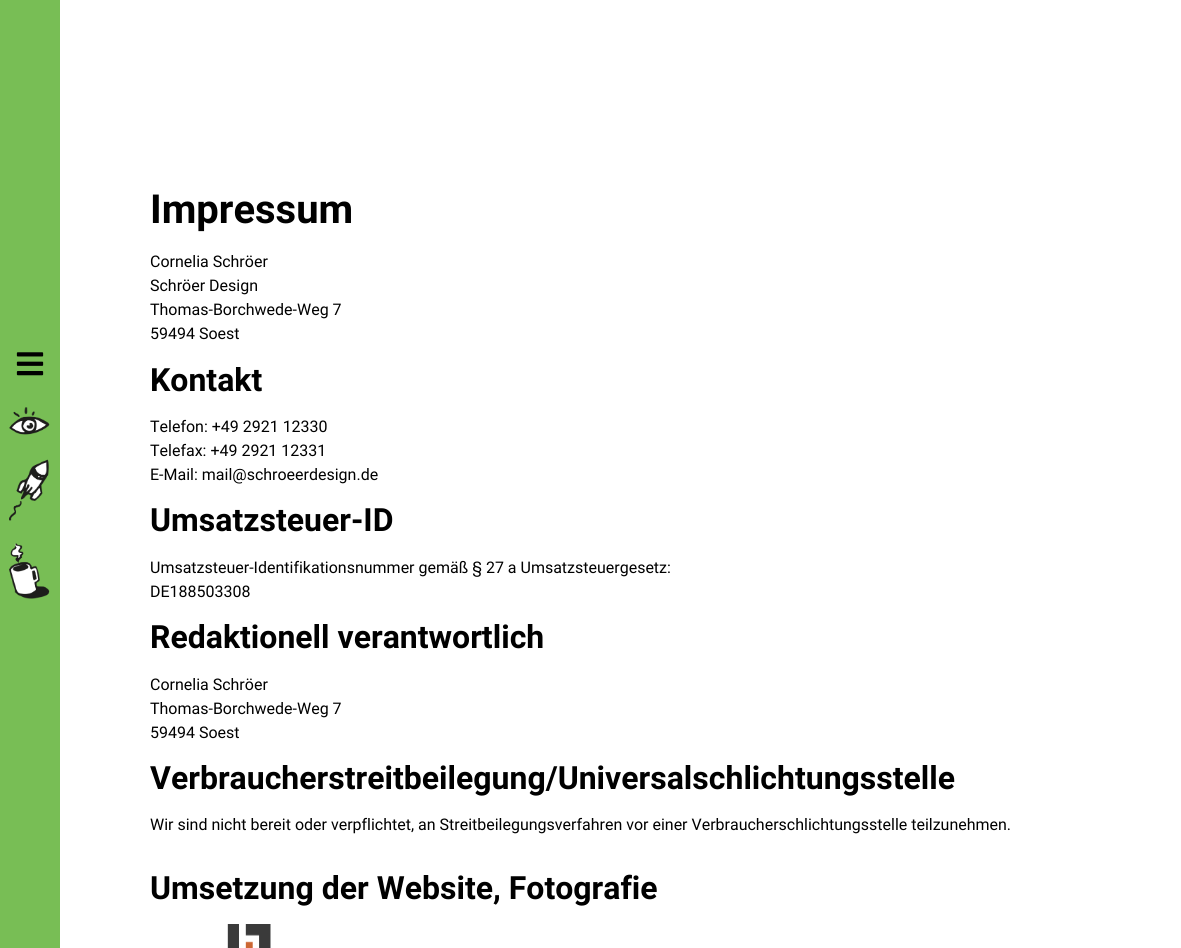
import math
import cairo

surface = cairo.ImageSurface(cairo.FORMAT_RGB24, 1181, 948)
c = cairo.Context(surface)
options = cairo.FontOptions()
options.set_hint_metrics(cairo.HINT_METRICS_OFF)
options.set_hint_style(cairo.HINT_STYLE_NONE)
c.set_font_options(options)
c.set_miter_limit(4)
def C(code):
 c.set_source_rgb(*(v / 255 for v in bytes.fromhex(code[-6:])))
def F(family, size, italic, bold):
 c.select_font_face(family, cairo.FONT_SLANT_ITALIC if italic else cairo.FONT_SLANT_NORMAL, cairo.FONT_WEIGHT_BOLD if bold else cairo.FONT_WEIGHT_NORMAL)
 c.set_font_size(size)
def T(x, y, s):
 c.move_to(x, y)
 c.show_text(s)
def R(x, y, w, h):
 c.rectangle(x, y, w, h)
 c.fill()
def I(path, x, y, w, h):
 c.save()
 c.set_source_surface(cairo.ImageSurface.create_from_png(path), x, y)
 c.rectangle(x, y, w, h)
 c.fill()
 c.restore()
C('ffffff')
c.paint()
C('78be55')
R(0,0,60,948)
I('1.png',16,352,28,24)
I('2.png',9,407,41,28)
I('3.png',9,459,40,62)
I('4.png',9,543,41,56)
F('Roboto',40,0,1)
C('000000')
T(150,223,'Impressum')
F('Roboto',16,0,0)
T(150,267,'Cornelia Schröer')
T(150,291,'Schröer Design')
T(150,315,'Thomas-Borchwede-Weg 7')
T(150,339,'59494 Soest')
F('Roboto',32,0,1)
T(150,391,'Kontakt')
F('Roboto',16,0,0)
T(150,432,'Telefon: +49 2921 12330')
T(150,456,'Telefax: +49 2921 12331')
T(150,480,'E-Mail: mail@schroeerdesign.de')
F('Roboto',32,0,1)
T(150,531,'Umsatzsteuer-ID')
F('Roboto',16,0,0)
T(150,573,'Umsatzsteuer-Identifikationsnummer gemäß § 27 a Umsatzsteuergesetz:')
T(150,597,'DE188503308')
F('Roboto',32,0,1)
T(150,648,'Redaktionell verantwortlich')
F('Roboto',16,0,0)
T(150,690,'Cornelia Schröer')
T(150,714,'Thomas-Borchwede-Weg 7')
T(150,738,'59494 Soest')
F('Roboto',32,0,1)
T(150,789,'Verbraucherstreitbeilegung/Universalschlichtungsstelle')
F('Roboto',16,0,0)
T(150,830,'Wir sind nicht bereit oder verpflichtet, an Streitbeilegungsverfahren vor einer Verbraucherschlichtungsstelle teilzunehmen.')
F('Roboto',32,0,1)
T(150,899,'Umsetzung der Website, Fotografie')
I('5.png',227,924,44,24)
surface.write_to_png('o.png')
